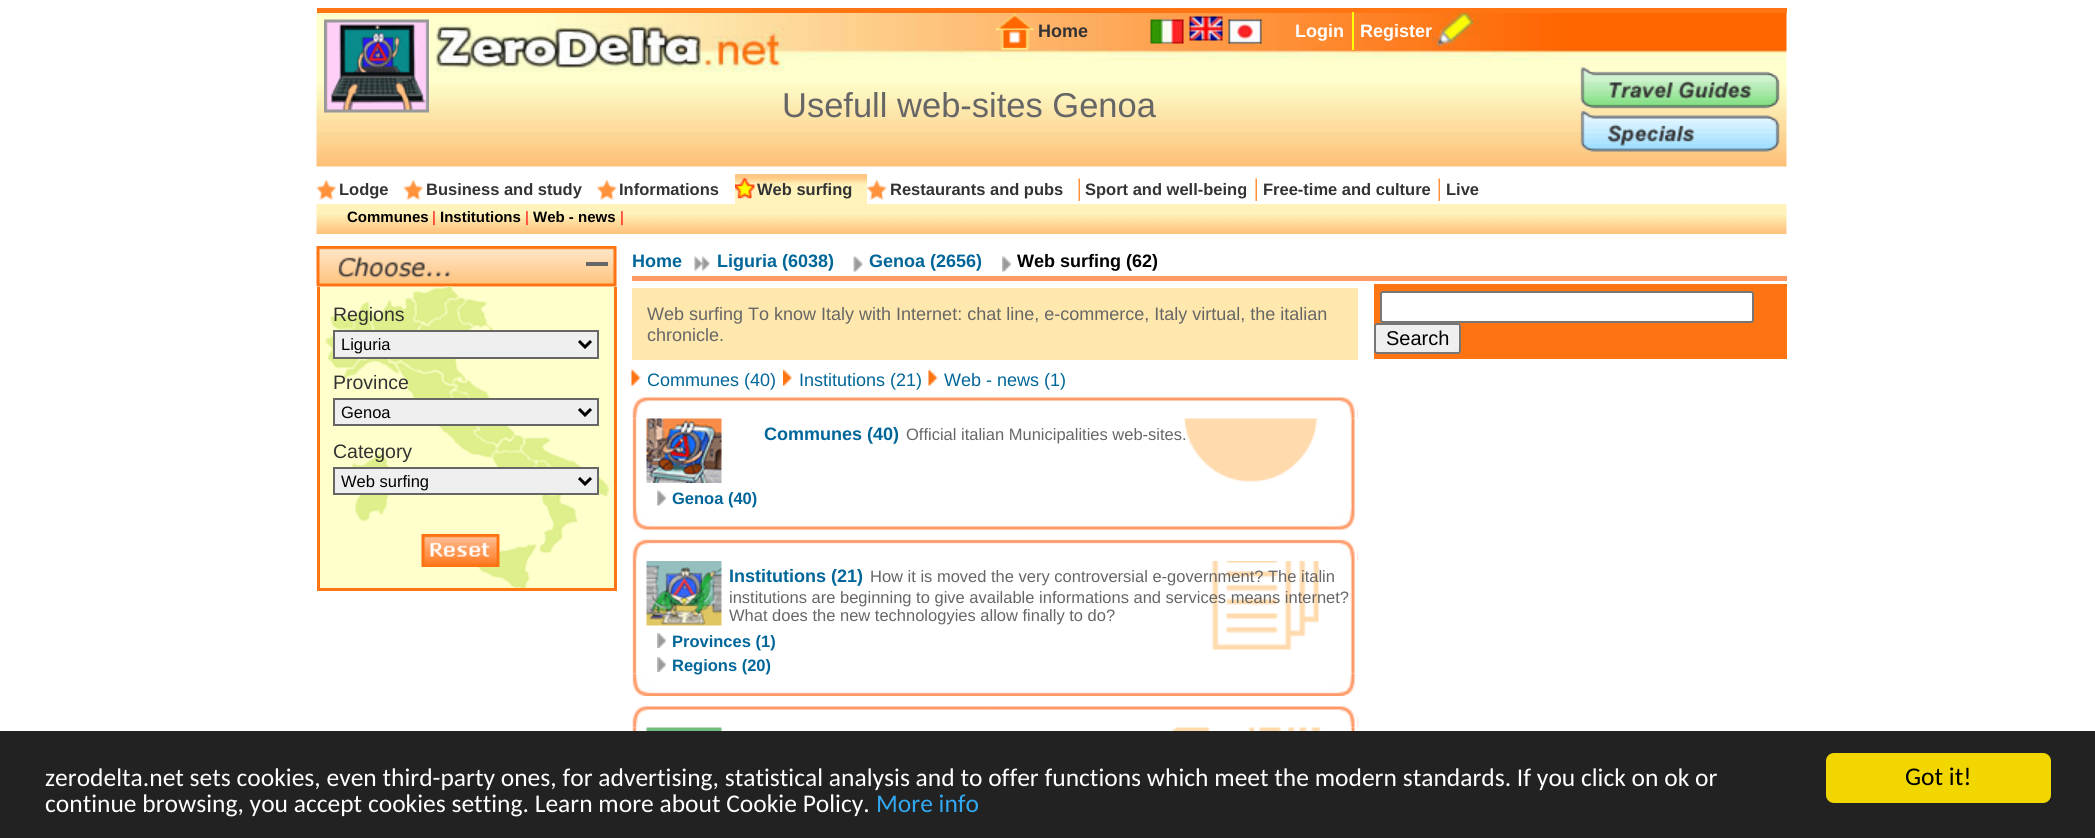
import math
import cairo

surface = cairo.ImageSurface(cairo.FORMAT_RGB24, 2095, 838)
c = cairo.Context(surface)
options = cairo.FontOptions()
options.set_hint_metrics(cairo.HINT_METRICS_OFF)
options.set_hint_style(cairo.HINT_STYLE_NONE)
c.set_font_options(options)
c.set_miter_limit(4)
def C(code):
 c.set_source_rgb(*(v / 255 for v in bytes.fromhex(code[-6:])))
def F(family, size, italic, bold):
 c.select_font_face(family, cairo.FONT_SLANT_ITALIC if italic else cairo.FONT_SLANT_NORMAL, cairo.FONT_WEIGHT_BOLD if bold else cairo.FONT_WEIGHT_NORMAL)
 c.set_font_size(size)
def T(x, y, s):
 c.move_to(x, y)
 c.show_text(s)
def R(x, y, w, h):
 c.rectangle(x, y, w, h)
 c.fill()
def Q(x, y, w, h, r):
 c.new_sub_path()
 for i, (u, v) in enumerate([(x + w - r, y + h - r), (x + r, y + h - r), (x + r, y + r), (x + w - r, y + r)]):
  c.arc(u, v, r, i * math.pi / 2, (i + 1) * math.pi / 2)
 c.close_path()
def I(path, x, y, w, h):
 c.save()
 c.set_source_surface(cairo.ImageSurface.create_from_png(path), x, y)
 c.rectangle(x, y, w, h)
 c.fill()
 c.restore()
C('ffffff')
c.paint()
I('1.png',316,12,1471,155)
C('ff7513')
R(317,8,1470,5)
I('2.png',324,19,105,94)
I('3.png',995,13,39,37)
F('Liberation Sans',18,0,1)
C('333333')
T(1038,37,'Home')
I('4.png',1150,19,34,25)
I('5.png',1189,16,34,25)
I('6.png',1228,19,34,25)
C('ffffff')
T(1295,37,'Login')
C('ffff00')
R(1352,12,2,38)
C('ffffff')
T(1360,37,'Register')
F('Liberation Sans',34.5,0,0)
C('666666')
T(782,117,'Usefull web-sites Genoa')
I('7.png',1580,67,200,42)
I('8.png',1580,110,200,42)
I('9.png',316,180,20,20)
F('Liberation Sans',16.5,0,1)
C('333333')
T(339,195,'Lodge')
I('10.png',403,180,20,20)
T(426,195,'Business and study')
I('11.png',597,180,20,20)
T(619,195,'Informations')
I('12.png',735,174,132,30)
T(757,195,'Web surfing')
I('13.png',867,180,20,20)
T(890,195,'Restaurants and pubs')
I('14.png',1078,178,2,23)
T(1085,195,'Sport and well-being')
I('14.png',1255,178,2,23)
T(1263,195,'Free-time and culture')
I('14.png',1438,178,2,23)
T(1446,195,'Live')
I('15.png',316,204,1471,30)
F('Liberation Sans',15,0,1)
C('000000')
T(347,222,'Communes')
F('Liberation Sans',15,0,0)
C('ff0000')
T(432,222,'|')
F('Liberation Sans',15,0,1)
C('000000')
T(440,222,'Institutions')
F('Liberation Sans',15,0,0)
C('ff0000')
T(525,222,'|')
F('Liberation Sans',15,0,1)
C('000000')
T(533,222,'Web - news')
F('Liberation Sans',15,0,0)
C('ff0000')
T(620,222,'|')
I('16.png',316,246,301,41)
I('17.png',338,256,113,22)
C('666666')
R(586,262,22,4)
C('ffffcc')
R(320,287,294,301)
I('18.png',325,286,284,302)
C('ff7413')
R(614,287,3,301)
R(317,287,3,301)
F('Liberation Sans',19.5,0,0)
C('333333')
T(333,321,'Regions')
C('efefef')
c.rectangle(334,331,264,27)
c.fill_preserve()
C('666666')
c.stroke()
c.new_path()
c.move_to(579,341)
c.line_to(585,347)
c.line_to(591,341)
C('000000')
c.set_line_width(3)
c.stroke()
F('Liberation Sans',16.5,0,0)
T(341,350,'Liguria')
F('Liberation Sans',19.5,0,0)
C('333333')
T(333,389,'Province')
C('efefef')
c.rectangle(334,399,264,26)
c.fill_preserve()
C('666666')
c.set_line_width(2)
c.stroke()
c.new_path()
c.move_to(579,409)
c.line_to(585,415)
c.line_to(591,409)
C('000000')
c.set_line_width(3)
c.stroke()
F('Liberation Sans',16.5,0,0)
T(341,418,'Genoa')
F('Liberation Sans',19.5,0,0)
C('333333')
T(333,458,'Category')
C('efefef')
c.rectangle(334,468,264,26)
c.fill_preserve()
C('666666')
c.set_line_width(2)
c.stroke()
c.new_path()
c.move_to(579,478)
c.line_to(585,484)
c.line_to(591,478)
C('000000')
c.set_line_width(3)
c.stroke()
F('Liberation Sans',16.5,0,0)
T(341,487,'Web surfing')
I('19.png',421,534,79,33)
C('ff7413')
R(317,588,300,3)
F('Liberation Sans',18,0,1)
C('006699')
T(632,267,'Home')
I('20.png',694,256,16,16)
T(717,267,'Liguria (6038)')
I('21.png',853,256,10,16)
T(869,267,'Genoa (2656)')
I('22.png',1002,256,9,16)
C('000000')
T(1017,267,'Web surfing (62)')
C('ff9966')
R(632,276,1155,5)
C('ffe8ad')
R(632,288,726,72)
F('Liberation Sans',18,0,0)
C('666666')
T(647,320,'Web surfing To know Italy with Internet: chat line, e-commerce, Italy virtual, the italian')
T(647,341,'chronicle.')
I('23.png',631,368,10,18)
C('006699')
T(647,386,'Communes (40)')
I('24.png',783,368,9,18)
T(799,386,'Institutions (21)')
I('25.png',928,368,10,18)
T(944,386,'Web - news (1)')
I('26.png',632,397,726,22)
I('27.png',632,418,723,89)
I('28.png',1183,418,135,64)
I('29.png',646,418,76,65)
F('Liberation Sans',18,0,1)
T(764,440,'Communes (40)')
F('Liberation Sans',16.5,0,0)
C('666666')
T(906,440,'Official italian Municipalities web-sites.')
I('22.png',657,490,9,16)
I('30.png',632,507,724,23)
F('Liberation Sans',16.5,0,1)
C('006699')
T(672,504,'Genoa (40)')
I('31.png',632,539,726,22)
I('32.png',632,561,723,113)
I('33.png',1211,561,108,89)
I('34.png',646,561,76,65)
F('Liberation Sans',18,0,1)
T(729,582,'Institutions (21)')
F('Liberation Sans',16.5,0,0)
C('666666')
T(870,582,'How it is moved the very controversial e-government? The italin')
T(729,603,'institutions are beginning to give available informations and services means internet?')
T(729,621,'What does the new technologyies allow finally to do?')
I('35.png',657,633,9,15)
F('Liberation Sans',16.5,0,1)
C('006699')
T(672,647,'Provinces (1)')
I('35.png',657,657,9,15)
I('36.png',632,673,724,23)
T(672,671,'Regions (20)')
I('37.png',632,706,726,22)
I('38.png',632,727,723,4)
I('39.png',1168,727,153,4)
I('40.png',646,727,76,4)
C('ff7412')
R(1374,284,413,75)
C('ffffff')
Q(1381,292,372,30,2)
c.fill_preserve()
C('767676')
c.set_line_width(2)
c.stroke()
C('efefef')
Q(1375,324,85,29,2)
c.fill_preserve()
C('767676')
c.stroke()
F('Liberation Sans',20,0,0)
C('000000')
T(1386,345,'Search')
C('222222')
R(0,731,2095,107)
F('Carlito',25.5,0,0)
C('ffffff')
T(45,786,'zerodelta.net sets cookies, even third-party ones, for advertising, statistical analysis and to offer functions which meet the modern standards. If you click on ok or')
T(45,812,'continue browsing, you accept cookies setting. Learn more about Cookie Policy.')
C('31a8f0')
T(876,812,'More info')
C('f1d600')
Q(1826,753,225,50,8)
c.fill()
C('000000')
T(1905,785,'Got it!')
surface.write_to_png('o.png')
